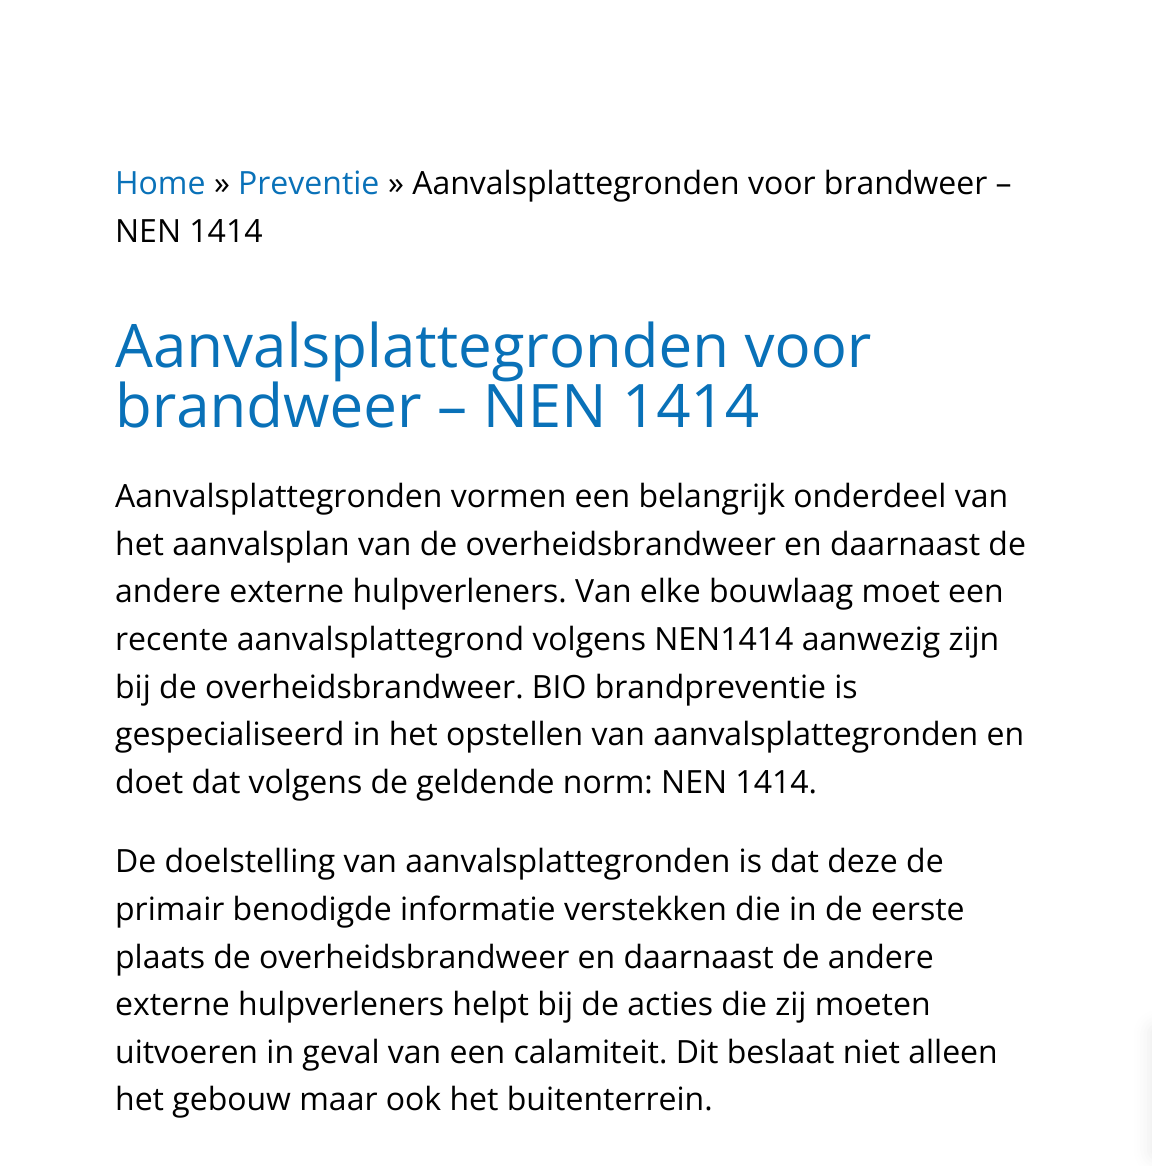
import math
import cairo

surface = cairo.ImageSurface(cairo.FORMAT_RGB24, 1152, 1166)
c = cairo.Context(surface)
options = cairo.FontOptions()
options.set_hint_metrics(cairo.HINT_METRICS_OFF)
options.set_hint_style(cairo.HINT_STYLE_NONE)
c.set_font_options(options)
c.set_miter_limit(4)
def C(code):
 c.set_source_rgb(*(v / 255 for v in bytes.fromhex(code[-6:])))
def F(family, size, italic, bold):
 c.select_font_face(family, cairo.FONT_SLANT_ITALIC if italic else cairo.FONT_SLANT_NORMAL, cairo.FONT_WEIGHT_BOLD if bold else cairo.FONT_WEIGHT_NORMAL)
 c.set_font_size(size)
def T(x, y, s):
 c.move_to(x, y)
 c.show_text(s)
def Q(x, y, w, h, r):
 c.new_sub_path()
 for i, (u, v) in enumerate([(x + w - r, y + h - r), (x + r, y + h - r), (x + r, y + r), (x + w - r, y + r)]):
  c.arc(u, v, r, i * math.pi / 2, (i + 1) * math.pi / 2)
 c.close_path()
def S(x, y, w, h, r, blur, alpha):
 c.push_group_with_content(cairo.CONTENT_ALPHA)
 c.set_operator(cairo.OPERATOR_SOURCE)
 for i in range(15, -16, -2):
  e = blur * i / 6
  if min(w, h) + 2 * e > 0:
   c.set_source_rgba(0, 0, 0, alpha * math.erfc((i - 1) / 8.5) / 2)
   Q(x - e, y - e, w + 2 * e, h + 2 * e, max(0, min(r + e + blur * .6, min(w, h) / 2 + e)))
   c.fill()
 c.mask(c.pop_group())
C('ffffff')
c.paint()
F('Open Sans',32,0,0)
C('0971b8')
T(115,194,'Home')
C('000000')
T(214,194,'»')
C('0971b8')
T(238,194,'Preventie')
C('000000')
T(388,194,'» Aanvalsplattegronden voor brandweer –')
T(115,242,'NEN 1414')
F('Open Sans',60,0,0)
C('0971b8')
T(115,367,'Aanvalsplattegronden voor')
T(115,427,'brandweer – NEN 1414')
F('Open Sans',32,0,0)
C('000000')
T(115,507,'Aanvalsplattegronden vormen een belangrijk onderdeel van')
T(115,555,'het aanvalsplan van de overheidsbrandweer en daarnaast de')
T(115,602,'andere externe hulpverleners. Van elke bouwlaag moet een')
T(115,650,'recente aanvalsplattegrond volgens NEN1414 aanwezig zijn')
T(115,698,'bij de overheidsbrandweer. BIO brandpreventie is')
T(115,745,'gespecialiseerd in het opstellen van aanvalsplattegronden en')
T(115,793,'doet dat volgens de geldende norm: NEN 1414.')
T(115,872,'De doelstelling van aanvalsplattegronden is dat deze de')
T(115,920,'primair benodigde informatie verstekken die in de eerste')
T(115,968,'plaats de overheidsbrandweer en daarnaast de andere')
T(115,1015,'externe hulpverleners helpt bij de acties die zij moeten')
T(115,1063,'uitvoeren in geval van een calamiteit. Dit beslaat niet alleen')
T(115,1110,'het gebouw maar ook het buitenterrein.')
C('000000')
S(1152,1028,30,128,0,10,.1)
surface.write_to_png('o.png')
